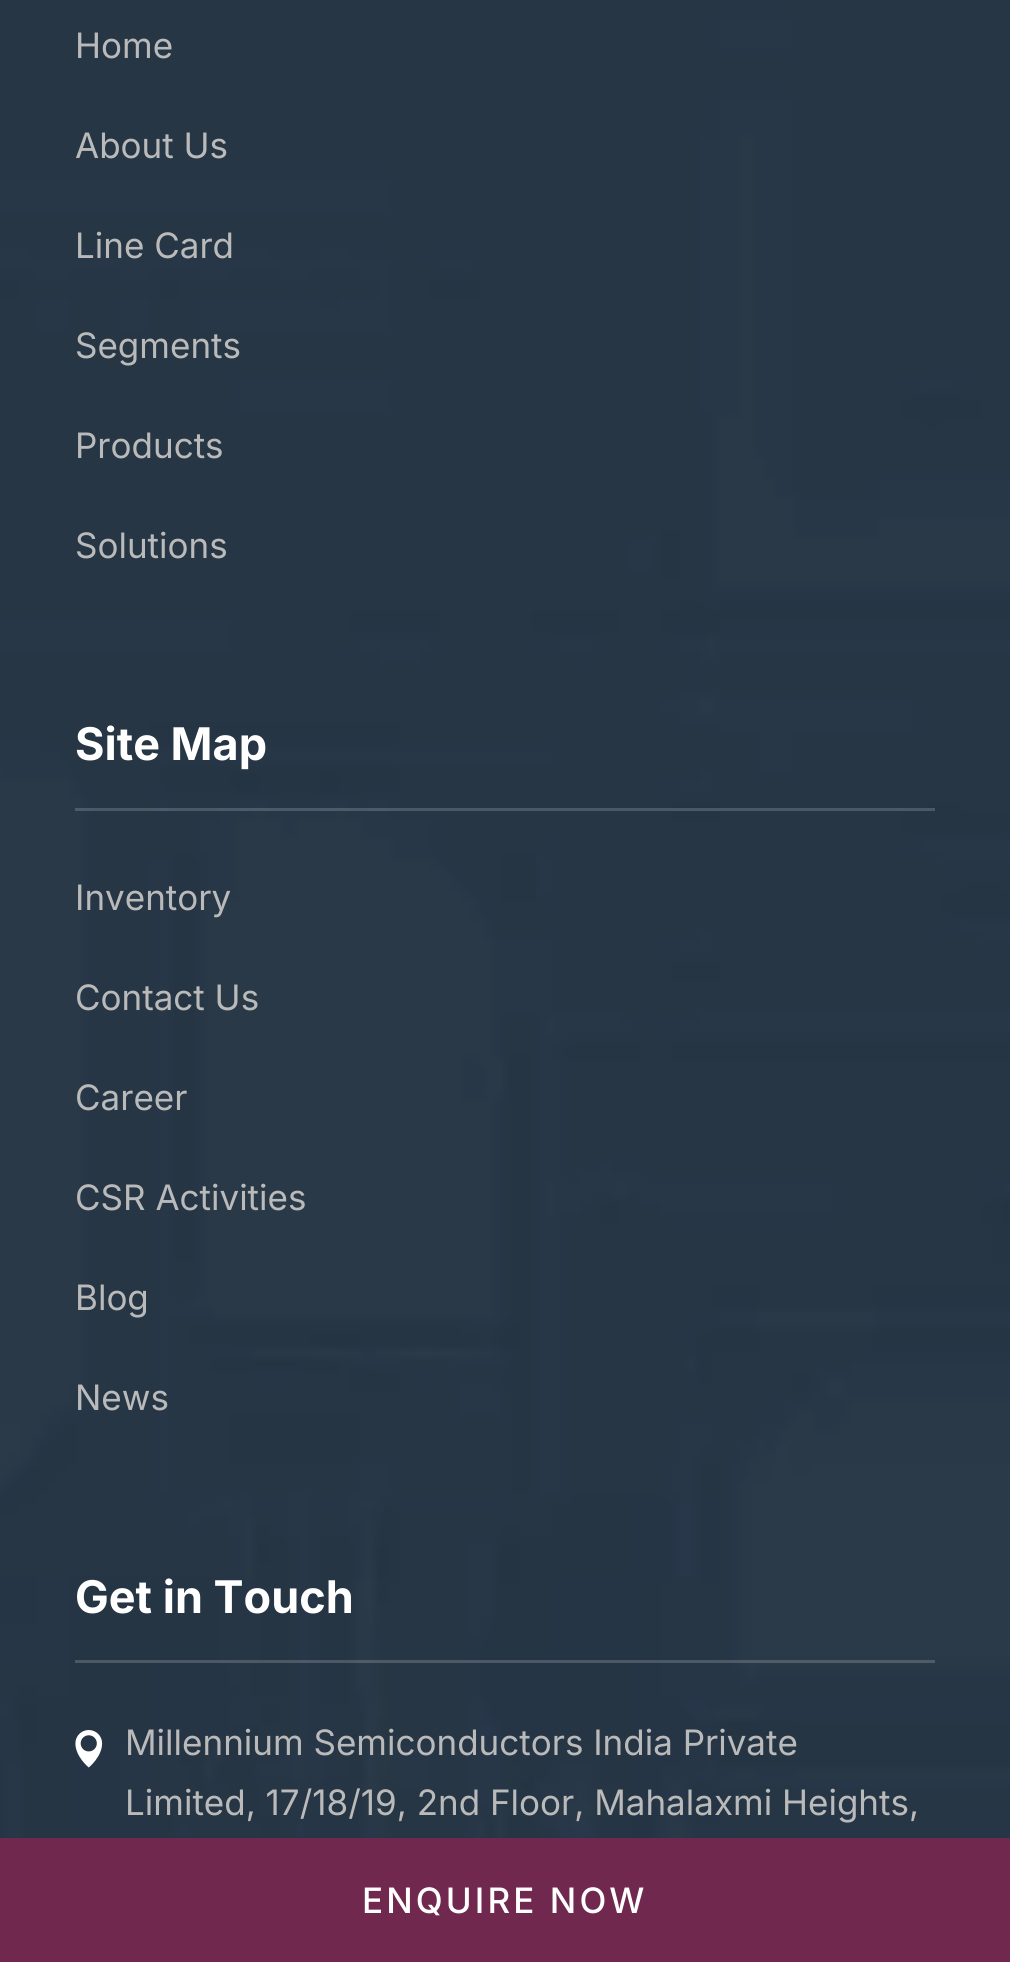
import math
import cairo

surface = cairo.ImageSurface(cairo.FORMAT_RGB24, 1010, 1962)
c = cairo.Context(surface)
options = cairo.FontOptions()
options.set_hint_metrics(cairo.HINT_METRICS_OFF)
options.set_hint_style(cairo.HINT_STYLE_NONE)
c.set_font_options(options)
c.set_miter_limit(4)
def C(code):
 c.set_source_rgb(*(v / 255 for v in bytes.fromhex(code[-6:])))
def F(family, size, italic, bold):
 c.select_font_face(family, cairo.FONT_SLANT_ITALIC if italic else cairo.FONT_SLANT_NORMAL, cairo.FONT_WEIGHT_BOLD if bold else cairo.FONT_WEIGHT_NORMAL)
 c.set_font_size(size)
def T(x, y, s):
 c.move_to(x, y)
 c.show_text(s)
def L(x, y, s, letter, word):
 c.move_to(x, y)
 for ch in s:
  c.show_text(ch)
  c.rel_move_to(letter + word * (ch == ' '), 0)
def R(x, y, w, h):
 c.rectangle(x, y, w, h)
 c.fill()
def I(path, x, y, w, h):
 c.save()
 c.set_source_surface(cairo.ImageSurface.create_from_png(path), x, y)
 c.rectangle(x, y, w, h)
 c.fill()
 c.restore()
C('ffffff')
c.paint()
I('1.png',0,0,1010,1838)
F('Inter',35,0,0)
C('bababa')
T(75,58,'Home')
T(75,158,'About Us')
T(75,258,'Line Card')
T(75,358,'Segments')
T(75,458,'Products')
T(75,558,'Solutions')
c.set_source_rgba(0.91,0.91,0.91,0.2)
R(75,808,860,3)
F('Inter',45,0,1)
C('ffffff')
T(75,760,'Site Map')
F('Inter',35,0,0)
C('bababa')
T(75,910,'Inventory')
T(75,1010,'Contact Us')
T(75,1110,'Career')
T(75,1210,'CSR Activities')
T(75,1310,'Blog')
T(75,1410,'News')
c.set_source_rgba(0.91,0.91,0.91,0.2)
R(75,1660,860,3)
F('Inter',45,0,1)
C('ffffff')
T(75,1613,'Get in Touch')
I('2.png',75,1730,28,38)
F('Inter',35,0,0)
C('bababa')
T(125,1755,'Millennium Semiconductors India Private')
T(125,1815,'Limited, 17/18/19, 2nd Floor, Mahalaxmi Heights,')
C('70284e')
R(0,1838,1010,124)
F('Inter Medium',35,0,0)
C('ffffff')
L(362,1913,'ENQUIRE NOW',3.1,0)
surface.write_to_png('o.png')
